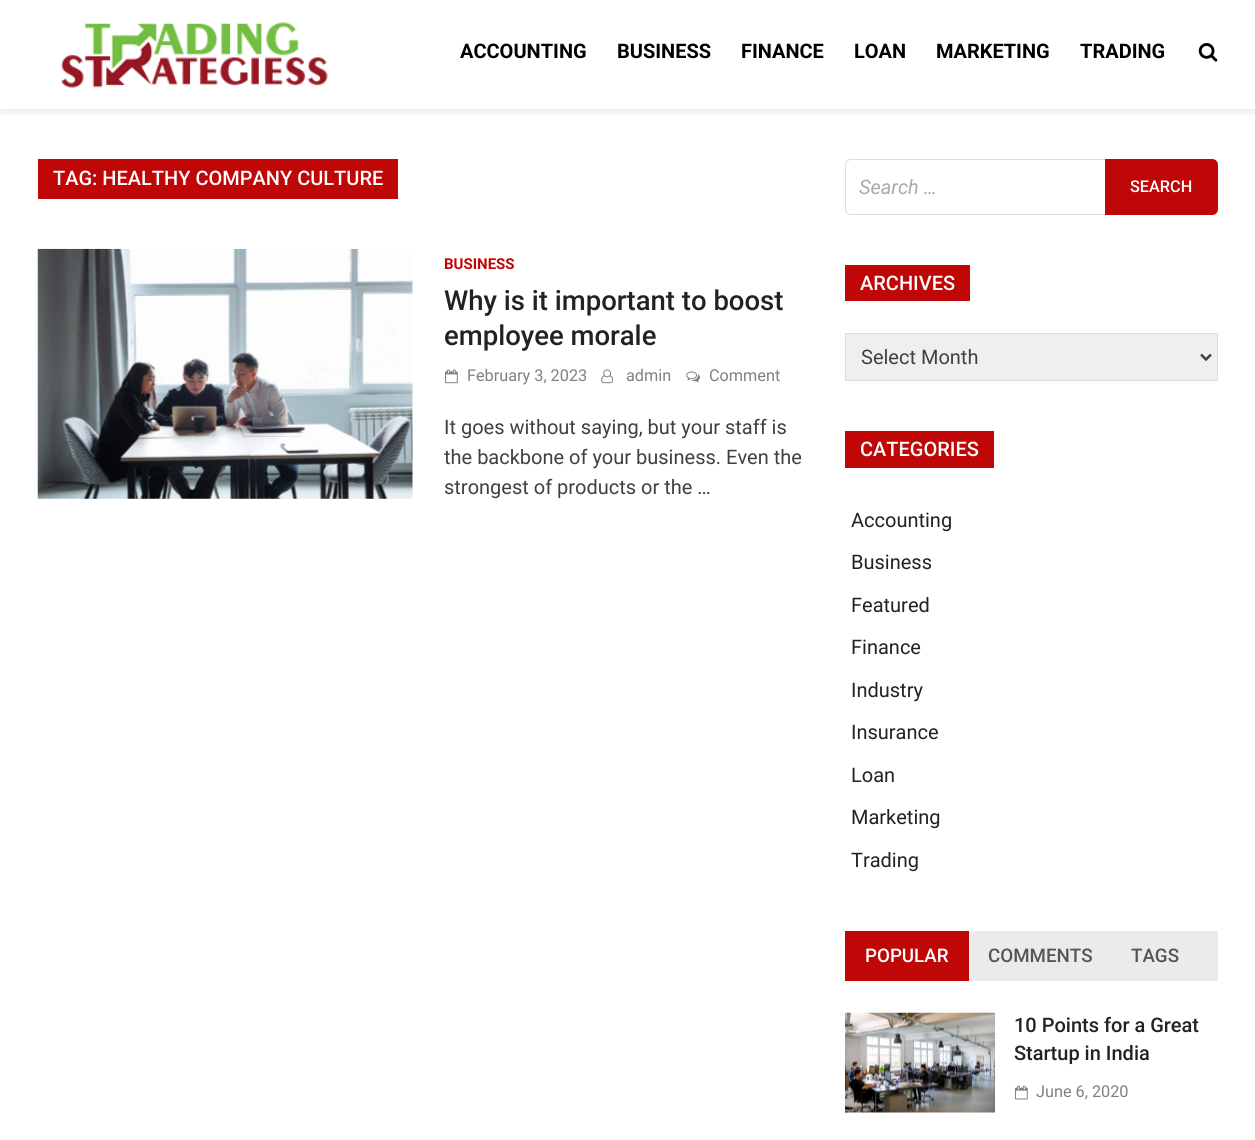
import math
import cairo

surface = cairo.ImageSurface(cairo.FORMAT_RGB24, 1255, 1140)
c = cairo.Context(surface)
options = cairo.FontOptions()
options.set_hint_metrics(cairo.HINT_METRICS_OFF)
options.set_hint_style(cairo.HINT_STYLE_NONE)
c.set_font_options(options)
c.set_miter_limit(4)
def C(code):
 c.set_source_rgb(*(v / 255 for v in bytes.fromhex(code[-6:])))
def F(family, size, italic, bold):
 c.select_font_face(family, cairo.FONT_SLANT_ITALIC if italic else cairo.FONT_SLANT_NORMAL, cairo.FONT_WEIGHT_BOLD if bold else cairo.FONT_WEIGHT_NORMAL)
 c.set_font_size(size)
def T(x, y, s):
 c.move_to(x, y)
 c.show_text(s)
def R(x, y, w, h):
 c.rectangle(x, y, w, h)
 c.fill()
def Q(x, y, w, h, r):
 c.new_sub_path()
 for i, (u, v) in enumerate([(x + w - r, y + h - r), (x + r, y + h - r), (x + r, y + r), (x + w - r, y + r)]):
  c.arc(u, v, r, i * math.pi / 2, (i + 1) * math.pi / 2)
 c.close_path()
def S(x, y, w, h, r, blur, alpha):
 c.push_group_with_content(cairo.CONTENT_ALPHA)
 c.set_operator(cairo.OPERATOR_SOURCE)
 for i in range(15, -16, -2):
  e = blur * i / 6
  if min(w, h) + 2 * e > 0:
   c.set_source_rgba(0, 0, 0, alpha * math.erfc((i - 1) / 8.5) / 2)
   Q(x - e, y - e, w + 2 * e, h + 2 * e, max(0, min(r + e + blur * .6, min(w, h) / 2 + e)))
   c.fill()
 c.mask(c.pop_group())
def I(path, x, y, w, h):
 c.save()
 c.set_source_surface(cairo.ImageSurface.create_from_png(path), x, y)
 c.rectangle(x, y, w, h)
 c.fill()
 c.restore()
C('ffffff')
c.paint()
c.save()
c.rectangle(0,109,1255,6)
c.clip()
C('000000')
S(0,3,1255,108,0,5,.1)
c.restore()
I('1.png',61,22,267,66)
F('Roboto',20,0,1)
C('000000')
T(460,58,'ACCOUNTING')
T(617,58,'BUSINESS')
T(741,58,'FINANCE')
T(854,58,'LOAN')
T(936,58,'MARKETING')
T(1080,58,'TRADING')
I('2.png',1198,43,20,19)
C('bf0707')
R(38,159,360,40)
F('Roboto Medium',20,0,0)
C('ffffff')
T(53,185,'TAG: HEALTHY COMPANY CULTURE')
I('3.png',37,248,376,251)
F('Roboto',15,0,1)
C('bf0707')
T(444,269,'BUSINESS')
F('Roboto Medium',27.5,0,0)
C('222222')
T(444,310,'Why is it important to boost')
T(444,345,'employee morale')
I('4.png',445,369,13,15)
F('Roboto',16.25,0,0)
C('808080')
T(467,381,'February 3, 2023')
I('5.png',601,369,12,15)
T(626,381,'admin')
I('6.png',686,371,14,12)
T(709,381,'Comment')
F('Roboto',20,0,0)
C('404040')
T(444,434,'It goes without saying, but your staff is')
T(444,464,'the backbone of your business. Even the')
T(444,494,'strongest of products or the …')
Q(845.5,159.5,372,55,5.5)
C('dddddd')
c.set_line_width(1)
c.stroke()
F('Roboto',20,1,0)
C('aaaaaa')
T(859,194,'Search …')
C('bf0707')
c.new_path()
c.move_to(1105,159)
c.line_to(1212,159)
c.curve_to(1215.5,159,1218,161.5,1218,165)
c.line_to(1218,209)
c.curve_to(1218,212.5,1215.5,215,1212,215)
c.line_to(1105,215)
c.close_path()
c.fill()
F('Roboto Medium',16.25,0,0)
C('ffffff')
T(1130,192,'SEARCH')
C('bf0707')
R(845,265,125,36)
F('Roboto Medium',20,0,0)
C('ffffff')
T(860,290,'ARCHIVES')
C('efefef')
c.rectangle(845.5,333.5,372,47)
c.fill_preserve()
C('dddddd')
c.stroke()
c.new_path()
c.move_to(1201,354.5)
c.line_to(1206,359.5)
c.line_to(1211,354.5)
C('404040')
c.set_line_width(2.5)
c.stroke()
F('Roboto',20,0,0)
T(861,364,'Select Month')
C('bf0707')
R(845,431,149,37)
F('Roboto Medium',20,0,0)
C('ffffff')
T(860,456,'CATEGORIES')
F('Roboto',20,0,0)
C('222222')
T(851,527,'Accounting')
T(851,569,'Business')
T(851,612,'Featured')
T(851,654,'Finance')
T(851,697,'Industry')
T(851,739,'Insurance')
T(851,782,'Loan')
T(851,824,'Marketing')
T(851,867,'Trading')
C('ebebeb')
R(969,931,249,50)
C('bf0707')
R(845,931,124,50)
F('Roboto Medium',18.75,0,0)
C('ffffff')
T(865,962,'POPULAR')
C('555555')
T(988,962,'COMMENTS')
T(1131,962,'TAGS')
I('7.png',845,1012,150,101)
F('Roboto Medium',20,0,0)
C('222222')
T(1014,1032,'10 Points for a Great')
T(1014,1060,'Startup in India')
I('8.png',1015,1085,13,15)
F('Roboto',16.25,0,0)
C('808080')
T(1036,1097,'June 6, 2020')
surface.write_to_png('o.png')
